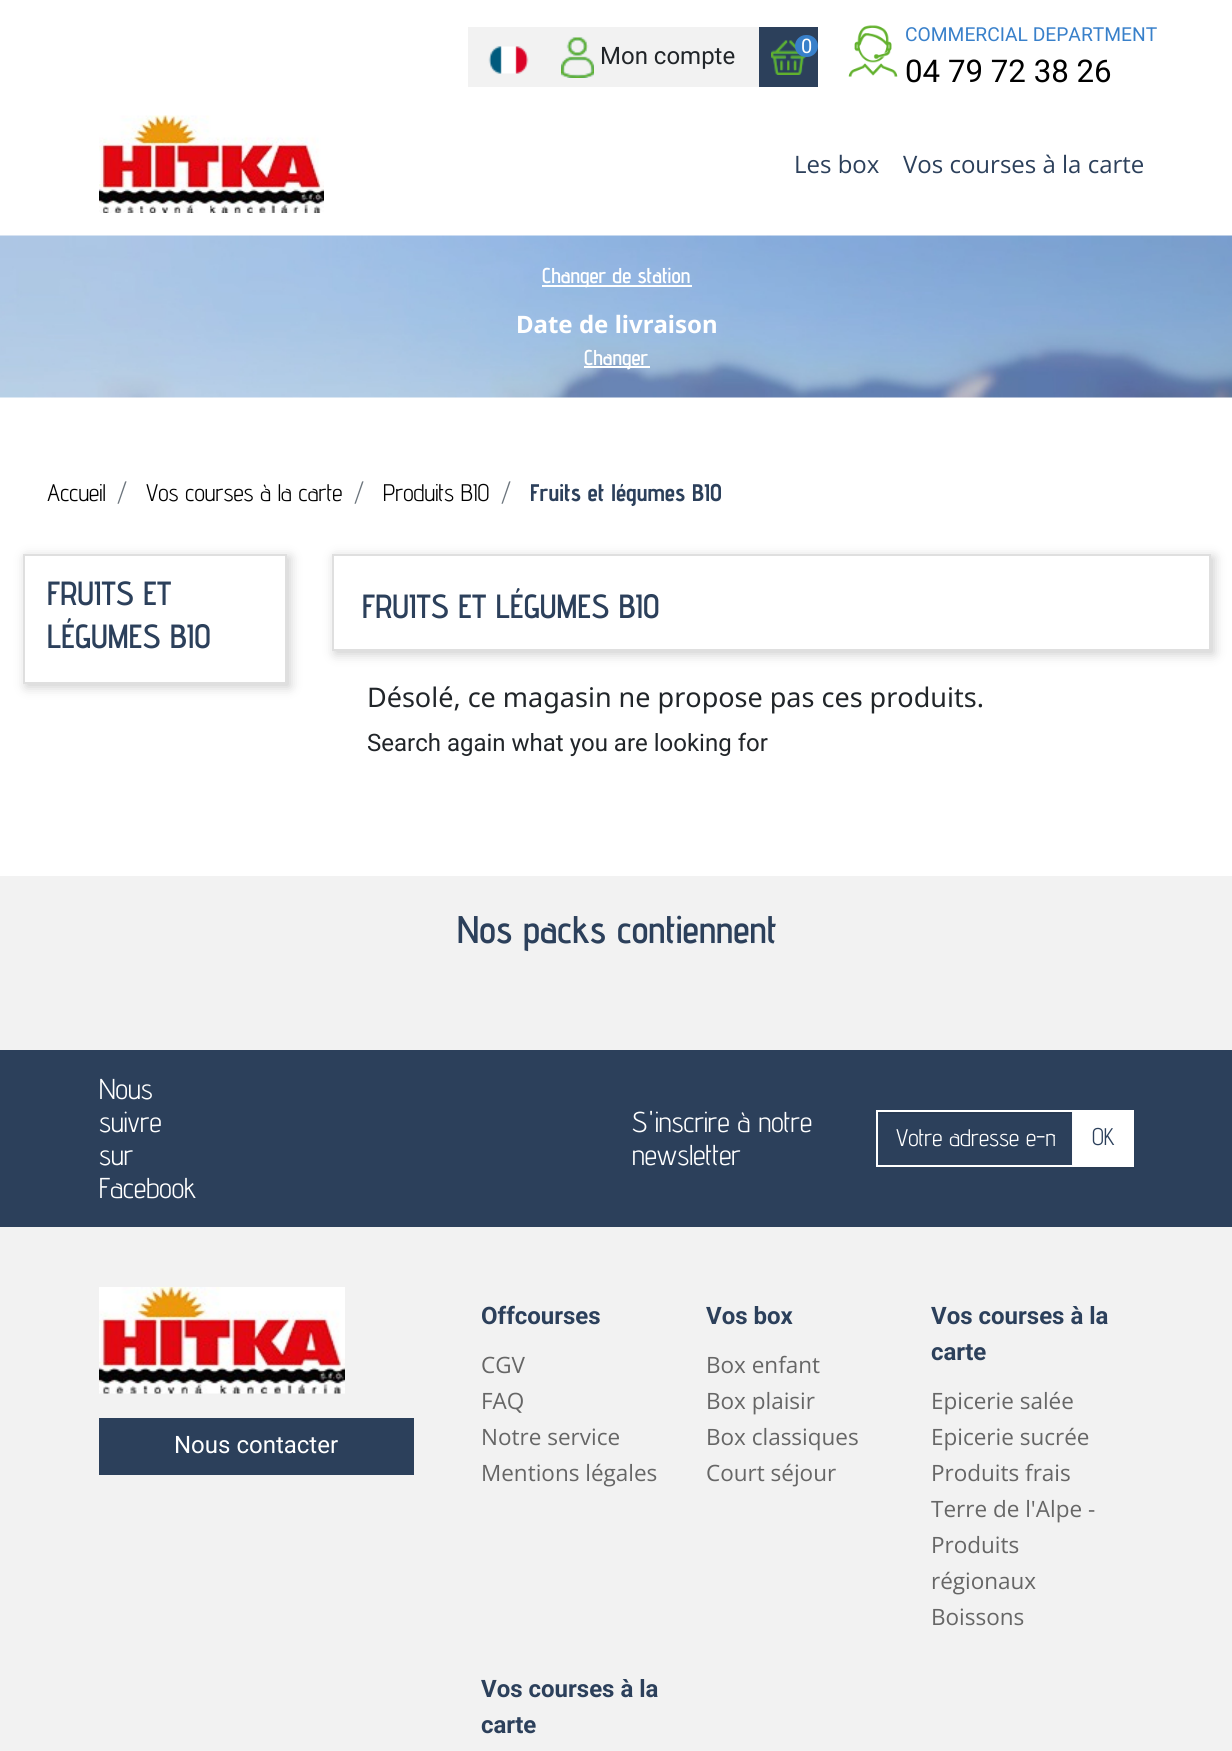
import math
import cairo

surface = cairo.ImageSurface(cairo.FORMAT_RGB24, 1232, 1751)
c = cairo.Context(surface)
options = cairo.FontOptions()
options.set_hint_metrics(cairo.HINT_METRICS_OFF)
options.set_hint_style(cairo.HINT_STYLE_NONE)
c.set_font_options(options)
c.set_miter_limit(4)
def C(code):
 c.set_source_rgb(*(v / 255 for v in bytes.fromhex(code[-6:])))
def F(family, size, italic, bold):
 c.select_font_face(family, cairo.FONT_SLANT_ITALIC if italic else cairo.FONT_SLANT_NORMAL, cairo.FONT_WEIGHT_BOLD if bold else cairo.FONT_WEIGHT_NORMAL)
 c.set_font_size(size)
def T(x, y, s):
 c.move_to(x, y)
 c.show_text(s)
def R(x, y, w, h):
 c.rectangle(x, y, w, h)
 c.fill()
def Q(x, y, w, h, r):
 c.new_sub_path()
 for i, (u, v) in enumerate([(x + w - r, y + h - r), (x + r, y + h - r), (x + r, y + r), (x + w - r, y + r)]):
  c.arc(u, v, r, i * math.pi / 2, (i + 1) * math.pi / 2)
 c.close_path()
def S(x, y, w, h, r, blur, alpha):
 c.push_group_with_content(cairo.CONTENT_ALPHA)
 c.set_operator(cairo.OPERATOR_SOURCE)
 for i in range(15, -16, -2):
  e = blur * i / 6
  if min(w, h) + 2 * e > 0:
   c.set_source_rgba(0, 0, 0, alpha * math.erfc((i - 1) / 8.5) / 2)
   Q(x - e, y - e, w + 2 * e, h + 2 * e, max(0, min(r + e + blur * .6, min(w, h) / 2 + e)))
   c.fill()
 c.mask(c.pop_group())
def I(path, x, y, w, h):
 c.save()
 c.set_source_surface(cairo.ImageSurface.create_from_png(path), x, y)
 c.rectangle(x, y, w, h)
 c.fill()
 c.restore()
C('ffffff')
c.paint()
C('f2f2f2')
R(468,27,291,60)
I('1.png',488,46,41,28)
I('2.png',561,37,33,41)
F('Roboto',24,0,0)
C('212529')
T(600,64,'Mon compte')
C('2c405b')
R(759,27,59,60)
I('3.png',771,40,35,35)
C('3880ca')
Q(795,35,23,22,11)
c.fill()
F('Roboto',20,0,0)
C('ffffff')
T(801,53,'0')
I('4.png',848,25,50,52)
F('Roboto',19.25,0,0)
C('3880ca')
T(905,41,'COMMERCIAL DEPARTMENT')
F('Roboto',31.25,0,0)
C('000000')
T(905,82,'04 79 72 38 26')
I('5.png',99,115,225,98)
F('Open Sans',24,0,0)
C('2c405b')
T(794,173,'Les box')
T(903,173,'Vos courses à la carte')
I('6.png',0,235,1232,163)
C('ffffff')
R(542,285,150,2)
F('Advent Pro SemiBold',21.5,0,0)
T(542,283,'Changer de station')
F('Noto Sans',24,0,1)
T(516,333,'Date de livraison')
R(584,366,66,2)
F('Advent Pro SemiBold',21.5,0,0)
T(584,365,'Changer')
F('Advent Pro',24,0,0)
C('000000')
T(47,501,'Accueil')
C('6c757d')
T(117,501,'/')
C('000000')
T(146,501,'Vos courses à la carte')
C('6c757d')
T(354,501,'/')
C('000000')
T(383,501,'Produits BIO')
C('6c757d')
T(501,501,'/')
F('Advent Pro',24,0,1)
C('2c405b')
T(530,501,'Fruits et légumes BIO')
C('000000')
S(26,557,264,130,0,6,.2)
C('ffffff')
c.rectangle(24,555,262,128)
c.fill_preserve()
C('dfdfdf')
c.stroke()
F('Advent Pro SemiBold',33.5,0,0)
C('2c405b')
T(47,605,'FRUITS ET')
T(47,648,'LÉGUMES BIO')
C('000000')
S(335,557,879,97,0,6,.2)
C('ffffff')
c.rectangle(333,555,877,95)
c.fill_preserve()
C('dfdfdf')
c.stroke()
C('2c405b')
T(362,618,'FRUITS ET LÉGUMES BIO')
F('Noto Sans',27,0,0)
C('212529')
T(367,707,'Désolé, ce magasin ne propose pas ces produits.')
F('Roboto',24,0,0)
T(367,751,'Search again what you are looking for')
C('f2f2f2')
R(0,876,1232,174)
F('Advent Pro SemiBold',38.5,0,0)
C('2c405b')
T(457,943,'Nos packs contiennent')
R(0,1050,1232,177)
F('Advent Pro',28.75,0,0)
C('ffffff')
T(99,1099,'Nous')
T(99,1132,'suivre')
T(99,1165,'sur')
T(99,1198,'Facebook')
T(632,1132,'S\'inscrire à notre')
C('293b54')
R(878,1112,195,2)
c.rectangle(877,1111,196,55)
C('ffffff')
c.stroke()
c.save()
c.rectangle(896,1124,159,28)
c.clip()
F('Advent Pro',24,0,0)
T(896,1146,'Votre adresse e-m')
c.restore()
C('000000')
S(1073,1112,61,57,0,1,.07)
C('ffffff')
R(1073,1110,61,57)
F('Advent Pro',24,0,0)
C('2c405b')
T(1092,1145,'OK')
F('Advent Pro',28.75,0,0)
C('ffffff')
T(632,1165,'newsletter')
C('f2f2f2')
R(0,1227,1232,524)
I('7.png',99,1287,246,107)
C('2c405b')
R(99,1418,315,57)
F('Roboto',24,0,0)
C('ffffff')
T(174,1453,'Nous contacter')
F('Roboto',24,0,1)
C('2c405b')
T(481,1324,'Offcourses')
F('Open Sans',22.5,0,0)
C('666666')
T(481,1373,'CGV')
T(481,1409,'FAQ')
T(481,1445,'Notre service')
T(481,1481,'Mentions légales')
F('Roboto',24,0,1)
C('2c405b')
T(706,1324,'Vos box')
F('Open Sans',22.5,0,0)
C('666666')
T(706,1373,'Box enfant')
T(706,1409,'Box plaisir')
T(706,1445,'Box classiques')
T(706,1481,'Court séjour')
F('Roboto',24,0,1)
C('2c405b')
T(931,1324,'Vos courses à la')
T(931,1360,'carte')
F('Open Sans',22.5,0,0)
C('666666')
T(931,1409,'Epicerie salée')
T(931,1445,'Epicerie sucrée')
T(931,1481,'Produits frais')
T(931,1517,'Terre de l\'Alpe -')
T(931,1553,'Produits')
T(931,1589,'régionaux')
T(931,1625,'Boissons')
F('Roboto',24,0,1)
C('2c405b')
T(481,1697,'Vos courses à la')
T(481,1733,'carte')
surface.write_to_png('o.png')
